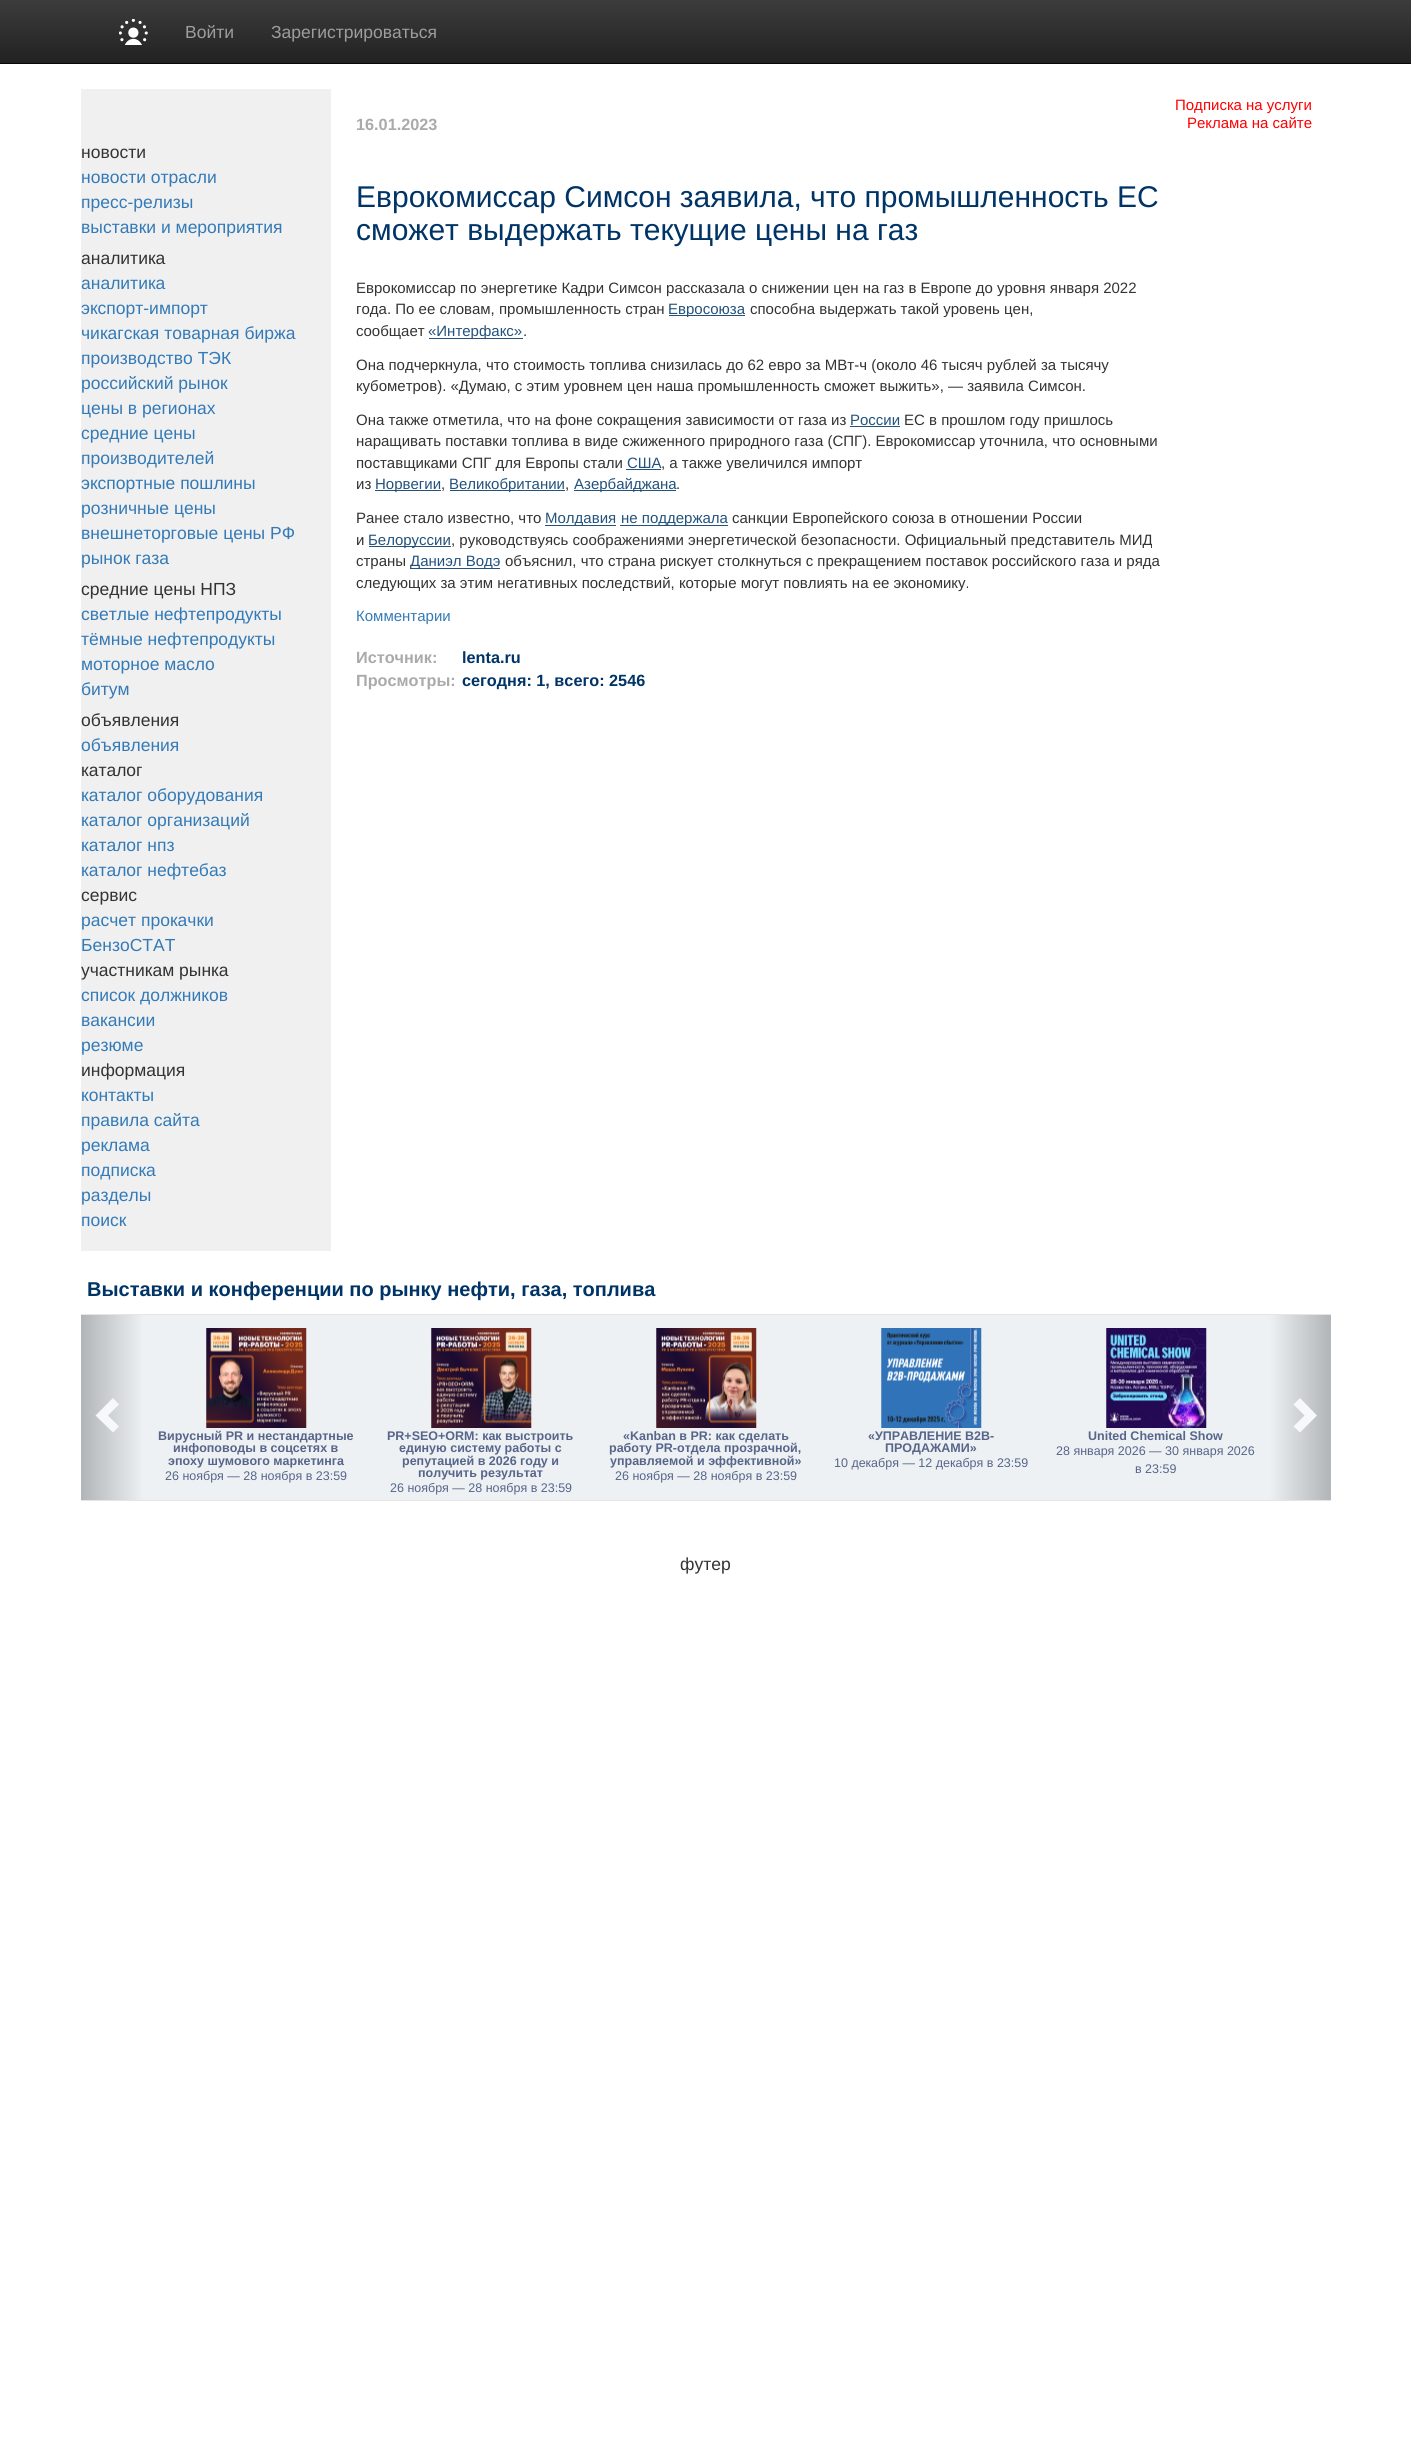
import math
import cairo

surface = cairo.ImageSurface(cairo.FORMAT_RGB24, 1411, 2437)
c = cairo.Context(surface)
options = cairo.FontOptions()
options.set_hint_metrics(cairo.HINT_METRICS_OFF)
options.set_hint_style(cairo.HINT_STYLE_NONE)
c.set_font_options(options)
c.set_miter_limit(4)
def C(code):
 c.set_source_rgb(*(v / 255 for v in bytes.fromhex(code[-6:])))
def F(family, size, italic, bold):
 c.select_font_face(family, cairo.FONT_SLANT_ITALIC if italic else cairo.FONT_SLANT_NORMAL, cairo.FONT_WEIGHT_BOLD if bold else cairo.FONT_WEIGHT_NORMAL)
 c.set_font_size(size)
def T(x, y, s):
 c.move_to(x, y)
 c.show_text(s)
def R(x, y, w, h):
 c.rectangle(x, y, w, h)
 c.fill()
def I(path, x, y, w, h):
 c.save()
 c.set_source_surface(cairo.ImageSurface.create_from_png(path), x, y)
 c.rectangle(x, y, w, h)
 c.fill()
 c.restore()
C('ffffff')
c.paint()
gradient = cairo.LinearGradient(706,0,706,63)
gradient.add_color_stop_rgba(0,0.235,0.235,0.235,1)
gradient.add_color_stop_rgba(1,0.133,0.133,0.133,1)
c.set_source(gradient)
R(0,0,1411,63)
C('080808')
R(0,63,1411,1)
I('1.png',119,19,29,26)
F('Liberation Sans',17.5,0,0)
C('9d9d9d')
T(185,38,'Войти')
T(271,38,'Зарегистрироваться')
C('f0f0f0')
R(81,89,250,1162)
C('333333')
T(81,158,'новости')
C('337ab7')
T(81,183,'новости отрасли')
T(81,208,'пресс-релизы')
T(81,233,'выставки и мероприятия')
C('333333')
T(81,264,'аналитика')
C('337ab7')
T(81,289,'аналитика')
T(81,314,'экспорт-импорт')
T(81,339,'чикагская товарная биржа')
T(81,364,'производство ТЭК')
T(81,389,'российский рынок')
T(81,414,'цены в регионах')
T(81,439,'средние цены')
T(81,464,'производителей')
T(81,489,'экспортные пошлины')
T(81,514,'розничные цены')
T(81,539,'внешнеторговые цены РФ')
T(81,564,'рынок газа')
C('333333')
T(81,595,'средние цены НПЗ')
C('337ab7')
T(81,620,'светлые нефтепродукты')
T(81,645,'тёмные нефтепродукты')
T(81,670,'моторное масло')
T(81,695,'битум')
C('333333')
T(81,726,'объявления')
C('337ab7')
T(81,751,'объявления')
C('333333')
T(81,776,'каталог')
C('337ab7')
T(81,801,'каталог оборудования')
T(81,826,'каталог организаций')
T(81,851,'каталог нпз')
T(81,876,'каталог нефтебаз')
C('333333')
T(81,901,'сервис')
C('337ab7')
T(81,926,'расчет прокачки')
T(81,951,'БензоСТАТ')
C('333333')
T(81,976,'участникам рынка')
C('337ab7')
T(81,1001,'список должников')
T(81,1026,'вакансии')
T(81,1051,'резюме')
C('333333')
T(81,1076,'информация')
C('337ab7')
T(81,1101,'контакты')
T(81,1126,'правила сайта')
T(81,1151,'реклама')
T(81,1176,'подписка')
T(81,1201,'разделы')
T(81,1226,'поиск')
F('Liberation Sans',15,0,0)
C('ff0000')
T(1175,110,'Подписка на услуги')
T(1187,128,'Реклама на сайте')
F('Liberation Sans',16.25,0,1)
C('aaaaaa')
T(356,130,'16.01.2023')
F('Liberation Sans',30,0,0)
C('003366')
T(356,207,'Еврокомиссар Симсон заявила, что промышленность ЕС')
T(356,240,'сможет выдержать текущие цены на газ')
F('Liberation Sans',15,0,0)
C('333333')
T(356,293,'Еврокомиссар по энергетике Кадри Симсон рассказала о снижении цен на газ в Европе до уровня января 2022')
T(356,314,'года. По ее словам, промышленность стран')
C('23527c')
R(669,315,76,1)
T(668,314,'Евросоюза')
C('333333')
T(750,314,'способна выдержать такой уровень цен,')
T(356,336,'сообщает')
C('23527c')
R(429,338,94,1)
T(428,336,'«Интерфакс»')
C('333333')
T(523,336,'.')
T(356,370,'Она подчеркнула, что стоимость топлива снизилась до 62 евро за МВт-ч (около 46 тысяч рублей за тысячу')
T(356,391,'кубометров). «Думаю, с этим уровнем цен наша промышленность сможет выжить», — заявила Симсон.')
T(356,425,'Она также отметила, что на фоне сокращения зависимости от газа из')
C('23527c')
T(850,425,'России')
R(850,426,50,1)
C('333333')
T(904,425,'ЕС в прошлом году пришлось')
T(356,446,'наращивать поставки топлива в виде сжиженного природного газа (СПГ). Еврокомиссар уточнила, что основными')
T(356,468,'поставщиками СПГ для Европы стали')
C('23527c')
T(627,468,'США')
R(626,469,35,1)
C('333333')
T(661,468,', а также увеличился импорт')
T(356,489,'из')
C('23527c')
R(375,490,66,1)
T(375,489,'Норвегии')
C('333333')
T(441,489,',')
C('23527c')
R(450,490,115,1)
T(449,489,'Великобритании')
C('333333')
T(565,489,',')
C('23527c')
R(574,490,102,1)
T(574,489,'Азербайджана')
C('333333')
T(676,489,'.')
T(356,523,'Ранее стало известно, что')
C('23527c')
R(545,525,71,1)
T(545,523,'Молдавия')
R(620,525,108,1)
T(621,523,'не поддержала')
C('333333')
T(732,523,'санкции Европейского союза в отношении России')
T(356,545,'и')
C('23527c')
R(369,546,82,1)
T(368,545,'Белоруссии')
C('333333')
T(451,545,', руководствуясь соображениями энергетической безопасности. Официальный представитель МИД')
T(356,566,'страны')
C('23527c')
R(410,568,90,1)
T(410,566,'Даниэл Водэ')
C('333333')
T(505,566,'объяснил, что страна рискует столкнуться с прекращением поставок российского газа и ряда')
T(356,588,'следующих за этим негативных последствий, которые могут повлиять на ее экономику.')
C('337ab7')
T(356,621,'Комментарии')
F('Liberation Sans',16.25,0,1)
C('aaaaaa')
T(356,663,'Источник:')
C('003366')
T(462,663,'lenta.ru')
C('aaaaaa')
T(356,686,'Просмотры:')
C('003366')
T(462,686,'сегодня: 1, всего: 2546')
F('Liberation Sans',20,0,1)
T(87,1296,'Выставки и конференции по рынку нефти, газа, топлива')
C('edf1f3')
R(144,1315,1125,185)
C('e5e5e5')
R(81,1314,1250,1)
R(81,1500,1250,1)
gradient = cairo.LinearGradient(81,1408,144,1408)
gradient.add_color_stop_rgba(0,0.698,0.71,0.718,1)
gradient.add_color_stop_rgba(1,0.929,0.945,0.953,1)
c.set_source(gradient)
R(81,1315,63,185)
C('f6f8f9')
c.new_path()
c.move_to(119,1404.5)
c.line_to(108,1415.5)
c.line_to(119,1426.5)
c.line_to(113,1432.5)
c.line_to(95.5,1415.5)
c.line_to(113,1398)
c.close_path()
c.fill()
I('2.png',206,1328,101,100)
F('Liberation Sans',12.5,0,1)
C('57658a')
T(158,1440,'Вирусный PR и нестандартные')
T(173,1452,'инфоповоды в соцсетях в')
T(168,1465,'эпоху шумового маркетинга')
F('Liberation Sans',12.5,0,0)
T(165,1480,'26 ноября — 28 ноября в 23:59')
I('3.png',431,1328,101,100)
F('Liberation Sans',12.5,0,1)
T(387,1440,'PR+SEO+ORM: как выстроить')
T(399,1452,'единую систему работы с')
T(402,1465,'репутацией в 2026 году и')
T(418,1477,'получить результат')
F('Liberation Sans',12.5,0,0)
T(390,1492,'26 ноября — 28 ноября в 23:59')
I('4.png',656,1328,101,100)
F('Liberation Sans',12.5,0,1)
T(623,1440,'«Kanban в PR: как сделать')
T(609,1452,'работу PR-отдела прозрачной,')
T(610,1465,'управляемой и эффективной»')
F('Liberation Sans',12.5,0,0)
T(615,1480,'26 ноября — 28 ноября в 23:59')
I('5.png',881,1328,101,100)
F('Liberation Sans',12.5,0,1)
T(868,1440,'«УПРАВЛЕНИЕ B2B-')
T(885,1452,'ПРОДАЖАМИ»')
F('Liberation Sans',12.5,0,0)
T(834,1467,'10 декабря — 12 декабря в 23:59')
I('6.png',1106,1328,101,100)
F('Liberation Sans',12.5,0,1)
T(1088,1440,'United Chemical Show')
F('Liberation Sans',12.5,0,0)
T(1056,1455,'28 января 2026 — 30 января 2026')
T(1135,1473,'в 23:59')
gradient = cairo.LinearGradient(1269,1408,1331,1408)
gradient.add_color_stop_rgba(0,0.929,0.945,0.953,1)
gradient.add_color_stop_rgba(1,0.698,0.71,0.718,1)
c.set_source(gradient)
R(1269,1315,62,185)
C('f6f8f9')
c.new_path()
c.move_to(1317,1415.5)
c.line_to(1300,1432.5)
c.line_to(1293.5,1426.5)
c.line_to(1304.5,1415.5)
c.line_to(1293.5,1404.5)
c.line_to(1300,1398)
c.close_path()
c.fill()
F('Liberation Sans',17.5,0,0)
C('333333')
T(680,1570,'футер')
surface.write_to_png('o.png')
